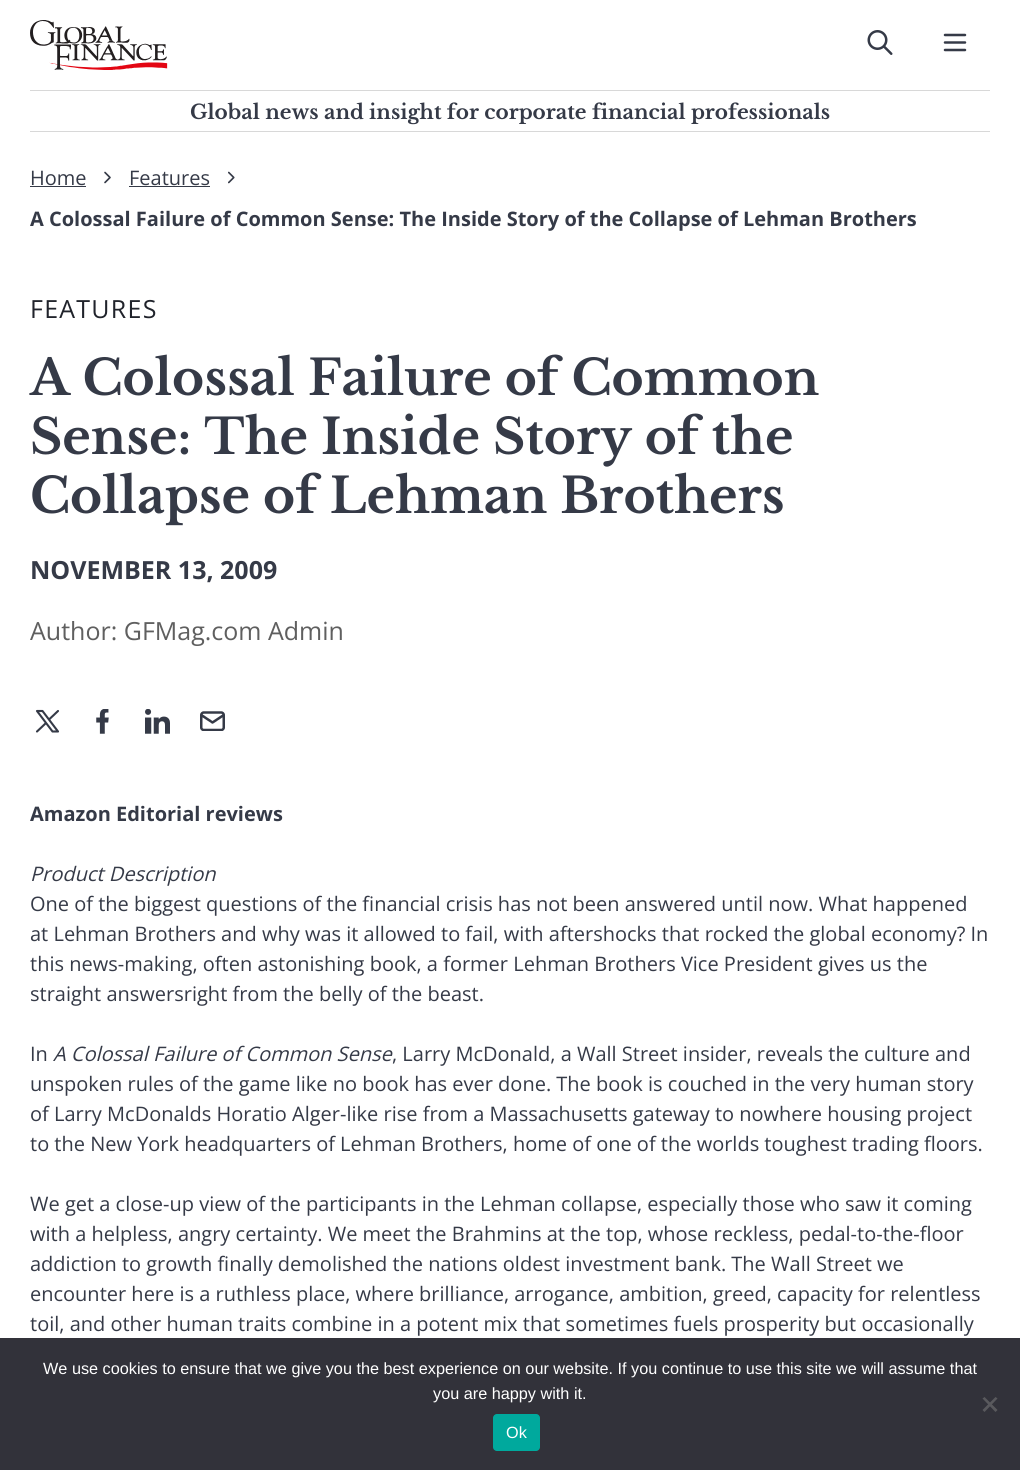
import math
import cairo

surface = cairo.ImageSurface(cairo.FORMAT_RGB24, 1020, 1470)
c = cairo.Context(surface)
options = cairo.FontOptions()
options.set_hint_metrics(cairo.HINT_METRICS_OFF)
options.set_hint_style(cairo.HINT_STYLE_NONE)
c.set_font_options(options)
c.set_miter_limit(4)
def C(code):
 c.set_source_rgb(*(v / 255 for v in bytes.fromhex(code[-6:])))
def F(family, size, italic, bold):
 c.select_font_face(family, cairo.FONT_SLANT_ITALIC if italic else cairo.FONT_SLANT_NORMAL, cairo.FONT_WEIGHT_BOLD if bold else cairo.FONT_WEIGHT_NORMAL)
 c.set_font_size(size)
def T(x, y, s):
 c.move_to(x, y)
 c.show_text(s)
def L(x, y, s, letter, word):
 c.move_to(x, y)
 for ch in s:
  c.show_text(ch)
  c.rel_move_to(letter + word * (ch == ' '), 0)
def R(x, y, w, h):
 c.rectangle(x, y, w, h)
 c.fill()
def Q(x, y, w, h, r):
 c.new_sub_path()
 for i, (u, v) in enumerate([(x + w - r, y + h - r), (x + r, y + h - r), (x + r, y + r), (x + w - r, y + r)]):
  c.arc(u, v, r, i * math.pi / 2, (i + 1) * math.pi / 2)
 c.close_path()
def I(path, x, y, w, h):
 c.save()
 c.set_source_surface(cairo.ImageSurface.create_from_png(path), x, y)
 c.rectangle(x, y, w, h)
 c.fill()
 c.restore()
C('ffffff')
c.paint()
I('1.png',30,20,138,50)
I('2.png',867,30,26,25)
I('3.png',943,33,24,19)
C('d8d8d8')
R(30,90,960,1)
R(30,131,960,1)
F('Libre Baskerville',20,0,1)
C('353a47')
T(190,119,'Global news and insight for corporate financial professionals')
F('Open Sans',20,0,0)
T(30,185,'Home')
R(30,186,56,1)
I('4.png',104,171,7,13)
T(129,185,'Features')
R(129,186,81,1)
I('5.png',228,171,7,13)
F('Open Sans',20,0,1)
T(30,226,'A Colossal Failure of Common Sense: The Inside Story of the Collapse of Lehman Brothers')
F('Open Sans',25,0,0)
C('20232b')
L(30,318,'FEATURES',1.25,0)
F('Libre Baskerville',48.75,0,1)
C('353a47')
T(30,395,'A Colossal Failure of Common')
T(30,454,'Sense: The Inside Story of the')
T(30,513,'Collapse of Lehman Brothers')
F('Open Sans',25,0,1)
T(30,579,'NOVEMBER 13, 2009')
F('Open Sans',25,0,0)
C('5f5f5f')
T(30,640,'Author: GFMag.com Admin')
c.new_path()
c.move_to(37,711)
c.line_to(52.5,731.5)
c.line_to(58,731.5)
c.line_to(42.5,711)
c.close_path()
c.move_to(37,731.5)
c.line_to(46,723)
c.move_to(49,719.5)
c.line_to(58,711)
C('353a47')
c.set_line_width(2.1)
c.set_line_cap(cairo.LINE_CAP_ROUND)
c.set_line_join(cairo.LINE_JOIN_ROUND)
c.stroke()
I('6.png',96,709,13,25)
I('7.png',145,709,25,25)
I('8.png',200,711,25,20)
F('Open Sans',20,0,1)
T(30,821,'Amazon Editorial reviews')
F('Open Sans',20,1,0)
T(30,881,'Product Description')
F('Open Sans',20,0,0)
T(30,911,'One of the biggest questions of the financial crisis has not been answered until now. What happened')
T(30,941,'at Lehman Brothers and why was it allowed to fail, with aftershocks that rocked the global economy? In')
T(30,971,'this news-making, often astonishing book, a former Lehman Brothers Vice President gives us the')
T(30,1001,'straight answersright from the belly of the beast.')
T(30,1061,'In')
F('Open Sans',20,1,0)
T(53,1061,'A Colossal Failure of Common Sense')
F('Open Sans',20,0,0)
T(392,1061,', Larry McDonald, a Wall Street insider, reveals the culture and')
T(30,1091,'unspoken rules of the game like no book has ever done. The book is couched in the very human story')
T(30,1121,'of Larry McDonalds Horatio Alger-like rise from a Massachusetts gateway to nowhere housing project')
T(30,1151,'to the New York headquarters of Lehman Brothers, home of one of the worlds toughest trading floors.')
T(30,1211,'We get a close-up view of the participants in the Lehman collapse, especially those who saw it coming')
T(30,1241,'with a helpless, angry certainty. We meet the Brahmins at the top, whose reckless, pedal-to-the-floor')
T(30,1271,'addiction to growth finally demolished the nations oldest investment bank. The Wall Street we')
T(30,1301,'encounter here is a ruthless place, where brilliance, arrogance, ambition, greed, capacity for relentless')
T(30,1331,'toil, and other human traits combine in a potent mix that sometimes fuels prosperity but occasionally')
C('32323a')
R(0,1338,1020,132)
F('Liberation Sans',16.25,0,0)
C('ffffff')
T(43,1374,'We use cookies to ensure that we give you the best experience on our website. If you continue to use this site we will assume that')
T(433,1399,'you are happy with it.')
C('59595d')
c.new_path()
c.move_to(995.5,1397)
c.line_to(997.5,1398.5)
c.line_to(984.5,1412)
c.line_to(982.5,1410)
c.close_path()
c.fill()
c.new_path()
c.move_to(982.5,1398.5)
c.line_to(984.5,1397)
c.line_to(997.5,1410)
c.line_to(995.5,1412)
c.close_path()
c.fill()
C('00a99d')
Q(493,1414,47,37,4)
c.fill()
C('ffffff')
T(506,1438,'Ok')
surface.write_to_png('o.png')
